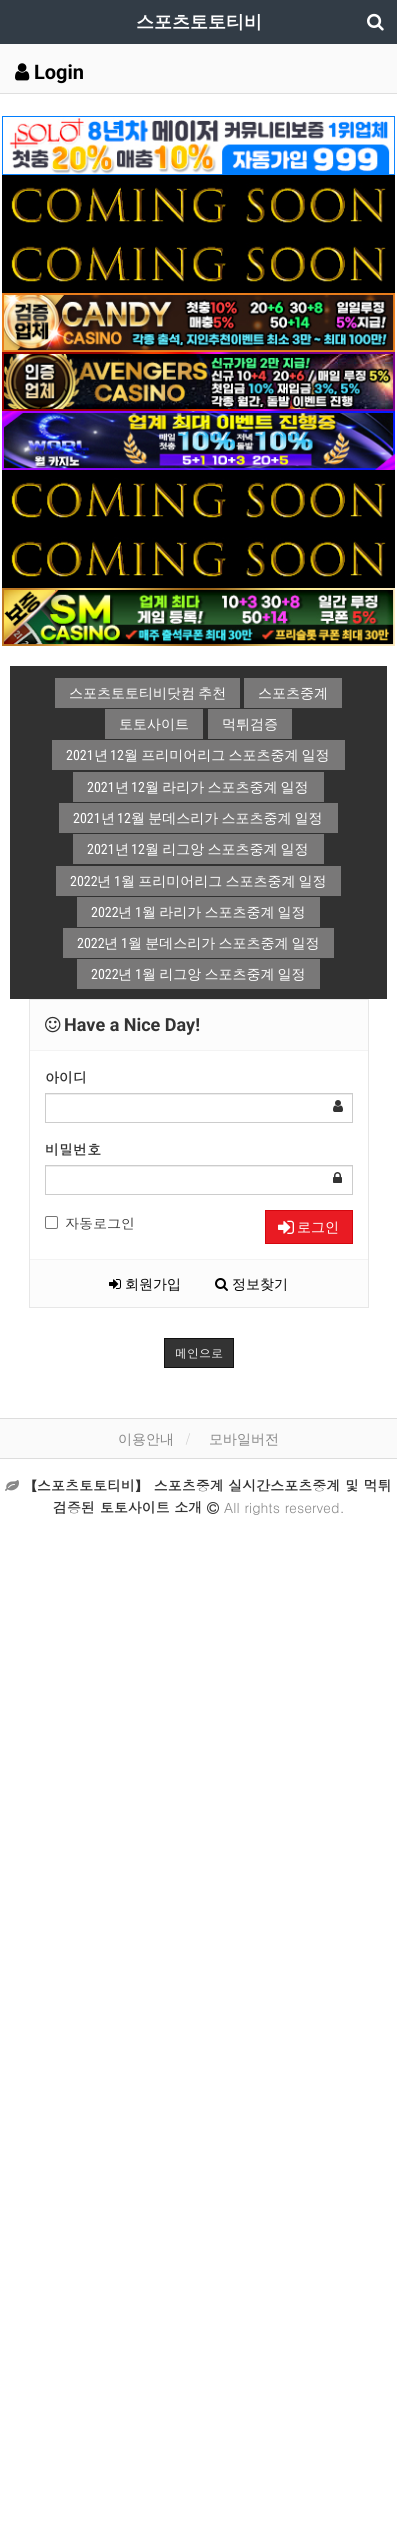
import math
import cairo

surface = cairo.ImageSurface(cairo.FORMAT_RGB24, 397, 2529)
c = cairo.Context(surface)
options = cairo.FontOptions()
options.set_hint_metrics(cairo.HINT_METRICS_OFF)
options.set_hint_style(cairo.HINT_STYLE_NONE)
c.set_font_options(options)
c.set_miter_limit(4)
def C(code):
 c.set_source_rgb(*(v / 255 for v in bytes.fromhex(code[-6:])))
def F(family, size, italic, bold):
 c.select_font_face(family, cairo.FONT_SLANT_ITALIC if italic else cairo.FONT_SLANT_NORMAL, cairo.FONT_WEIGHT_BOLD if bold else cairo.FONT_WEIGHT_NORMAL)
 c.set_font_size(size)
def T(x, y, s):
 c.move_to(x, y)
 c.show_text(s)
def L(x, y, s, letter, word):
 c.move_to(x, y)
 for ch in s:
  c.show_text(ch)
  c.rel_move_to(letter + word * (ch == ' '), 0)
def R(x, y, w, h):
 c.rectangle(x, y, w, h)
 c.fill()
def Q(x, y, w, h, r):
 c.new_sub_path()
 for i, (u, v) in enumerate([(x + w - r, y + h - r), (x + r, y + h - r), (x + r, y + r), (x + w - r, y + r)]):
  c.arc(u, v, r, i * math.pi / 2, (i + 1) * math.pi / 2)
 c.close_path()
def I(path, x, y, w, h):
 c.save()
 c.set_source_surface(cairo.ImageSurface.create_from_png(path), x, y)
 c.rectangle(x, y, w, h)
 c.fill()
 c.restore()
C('ffffff')
c.paint()
C('323c46')
R(0,0,397,44)
F('WenQuanYi Zen Hei',18,0,1)
C('ffffff')
T(136,28,'스포츠토토티비')
I('1.png',367,13,17,18)
C('fafafa')
R(0,44,397,49)
C('dfdfdf')
R(0,93,397,1)
I('2.png',15,63,15,18)
F('Roboto',20,0,1)
C('000000')
T(34,79,'Login')
I('3.png',2,116,393,59)
I('4.png',2,175,393,59)
I('4.png',2,234,393,59)
I('5.png',2,293,393,59)
I('6.png',2,352,393,59)
I('7.png',2,411,393,59)
I('4.png',2,470,393,59)
I('4.png',2,529,393,59)
I('8.png',2,588,393,58)
C('313131')
R(10,666,377,333)
C('797878')
R(55,678,185,30)
F('WenQuanYi Zen Hei Medium',14,0,0)
C('ffffff')
L(69,698,'스포츠토토티비닷컴 추천',0,-1)
C('797878')
R(244,678,98,30)
C('ffffff')
T(258,698,'스포츠중계')
C('797878')
R(105,709,98,30)
C('ffffff')
T(119,729,'토토사이트')
C('797878')
R(208,709,84,30)
C('ffffff')
T(222,729,'먹튀검증')
C('797878')
R(52,740,293,30)
F('Roboto Condensed',14,0,0)
C('ffffff')
T(66,760,'2021')
F('WenQuanYi Zen Hei Medium',14,0,0)
T(94,760,'년')
F('Roboto Condensed',14,0,0)
T(110,760,'12')
F('WenQuanYi Zen Hei Medium',14,0,0)
L(124,760,'월 프리미어리그 스포츠중계 일정',0,-1)
C('797878')
R(73,772,251,30)
F('Roboto Condensed',14,0,0)
C('ffffff')
T(87,792,'2021')
F('WenQuanYi Zen Hei Medium',14,0,0)
T(115,792,'년')
F('Roboto Condensed',14,0,0)
T(131,792,'12')
F('WenQuanYi Zen Hei Medium',14,0,0)
L(145,792,'월 라리가 스포츠중계 일정',0,-1)
C('797878')
R(59,803,279,30)
F('Roboto Condensed',14,0,0)
C('ffffff')
T(73,823,'2021')
F('WenQuanYi Zen Hei Medium',14,0,0)
T(101,823,'년')
F('Roboto Condensed',14,0,0)
T(117,823,'12')
F('WenQuanYi Zen Hei Medium',14,0,0)
L(131,823,'월 분데스리가 스포츠중계 일정',0,-1)
C('797878')
R(73,834,251,30)
F('Roboto Condensed',14,0,0)
C('ffffff')
T(87,854,'2021')
F('WenQuanYi Zen Hei Medium',14,0,0)
T(115,854,'년')
F('Roboto Condensed',14,0,0)
T(131,854,'12')
F('WenQuanYi Zen Hei Medium',14,0,0)
L(145,854,'월 리그앙 스포츠중계 일정',0,-1)
C('797878')
R(56,866,285,30)
F('Roboto Condensed',14,0,0)
C('ffffff')
T(70,886,'2022')
F('WenQuanYi Zen Hei Medium',14,0,0)
T(97,886,'년')
F('Roboto Condensed',14,0,0)
T(114,886,'1')
F('WenQuanYi Zen Hei Medium',14,0,0)
L(121,886,'월 프리미어리그 스포츠중계 일정',0,-1)
C('797878')
R(77,897,243,30)
F('Roboto Condensed',14,0,0)
C('ffffff')
T(91,917,'2022')
F('WenQuanYi Zen Hei Medium',14,0,0)
T(118,917,'년')
F('Roboto Condensed',14,0,0)
T(135,917,'1')
F('WenQuanYi Zen Hei Medium',14,0,0)
L(142,917,'월 라리가 스포츠중계 일정',0,-1)
C('797878')
R(63,928,271,30)
F('Roboto Condensed',14,0,0)
C('ffffff')
T(77,948,'2022')
F('WenQuanYi Zen Hei Medium',14,0,0)
T(104,948,'년')
F('Roboto Condensed',14,0,0)
T(121,948,'1')
F('WenQuanYi Zen Hei Medium',14,0,0)
L(128,948,'월 분데스리가 스포츠중계 일정',0,-1)
C('797878')
R(77,959,243,30)
F('Roboto Condensed',14,0,0)
C('ffffff')
T(91,979,'2022')
F('WenQuanYi Zen Hei Medium',14,0,0)
T(118,979,'년')
F('Roboto Condensed',14,0,0)
T(135,979,'1')
F('WenQuanYi Zen Hei Medium',14,0,0)
L(142,979,'월 리그앙 스포츠중계 일정',0,-1)
C('fcfcfc')
c.rectangle(29.5,999.5,339,308)
c.fill_preserve()
C('e7e7e7')
c.set_line_width(1)
c.stroke()
C('f3f3f3')
R(30,1050,338,1)
I('9.png',45,1016,16,17)
F('Roboto',18,0,1)
C('333333')
T(64,1031,'Have a Nice Day!')
C('ffffff')
R(30,1051,338,208)
F('Dotum',14,0,1)
C('333333')
T(45,1083,'아이디')
C('ececec')
R(46,1094,306,1)
c.rectangle(45.5,1093.5,307,29)
C('cccccc')
c.stroke()
I('10.png',333,1100,10,12)
C('333333')
T(45,1155,'비밀번호')
C('ececec')
R(46,1166,306,1)
c.rectangle(45.5,1165.5,307,29)
C('cccccc')
c.stroke()
I('11.png',333,1172,9,11)
Q(45.5,1216.5,12,12,1.5)
C('767676')
c.stroke()
F('Dotum',14,0,0)
C('333333')
T(65,1229,'자동로그인')
C('e91b23')
c.rectangle(265.5,1210.5,87,33)
c.fill_preserve()
C('d5070f')
c.stroke()
I('12.png',278,1220,16,14)
F('WenQuanYi Zen Hei Medium',14,0,0)
C('ffffff')
T(297,1232,'로그인')
C('f3f3f3')
R(30,1259,338,1)
I('13.png',109,1279,12,10)
C('000000')
T(125,1289,'회원가입')
I('14.png',215,1278,13,13)
T(232,1289,'정보찾기')
C('333333')
c.rectangle(164.5,1338.5,69,29)
c.fill_preserve()
C('111111')
c.stroke()
F('Dotum',12,0,0)
C('ffffff')
T(175,1358,'메인으로')
C('fafafa')
R(0,1419,397,39)
C('dddddd')
R(0,1418,397,1)
R(0,1458,397,1)
F('WenQuanYi Zen Hei Medium',14,0,0)
C('888888')
T(118,1444,'이용안내')
F('Dotum',14,0,0)
C('cccccc')
T(185,1444,'/')
F('WenQuanYi Zen Hei Medium',14,0,0)
C('888888')
T(209,1444,'모바일버전')
I('15.png',5,1480,14,11)
F('Dotum',14,0,1)
C('333333')
T(23,1491,'【스포츠토토티비】 스포츠중계 실시간스포츠중계 및 먹튀')
T(53,1513,'검증된 토토사이트 소개')
I('16.png',207,1502,12,12)
F('Dotum',14,0,0)
C('888888')
T(224,1513,'All rights reserved.')
surface.write_to_png('o.png')
